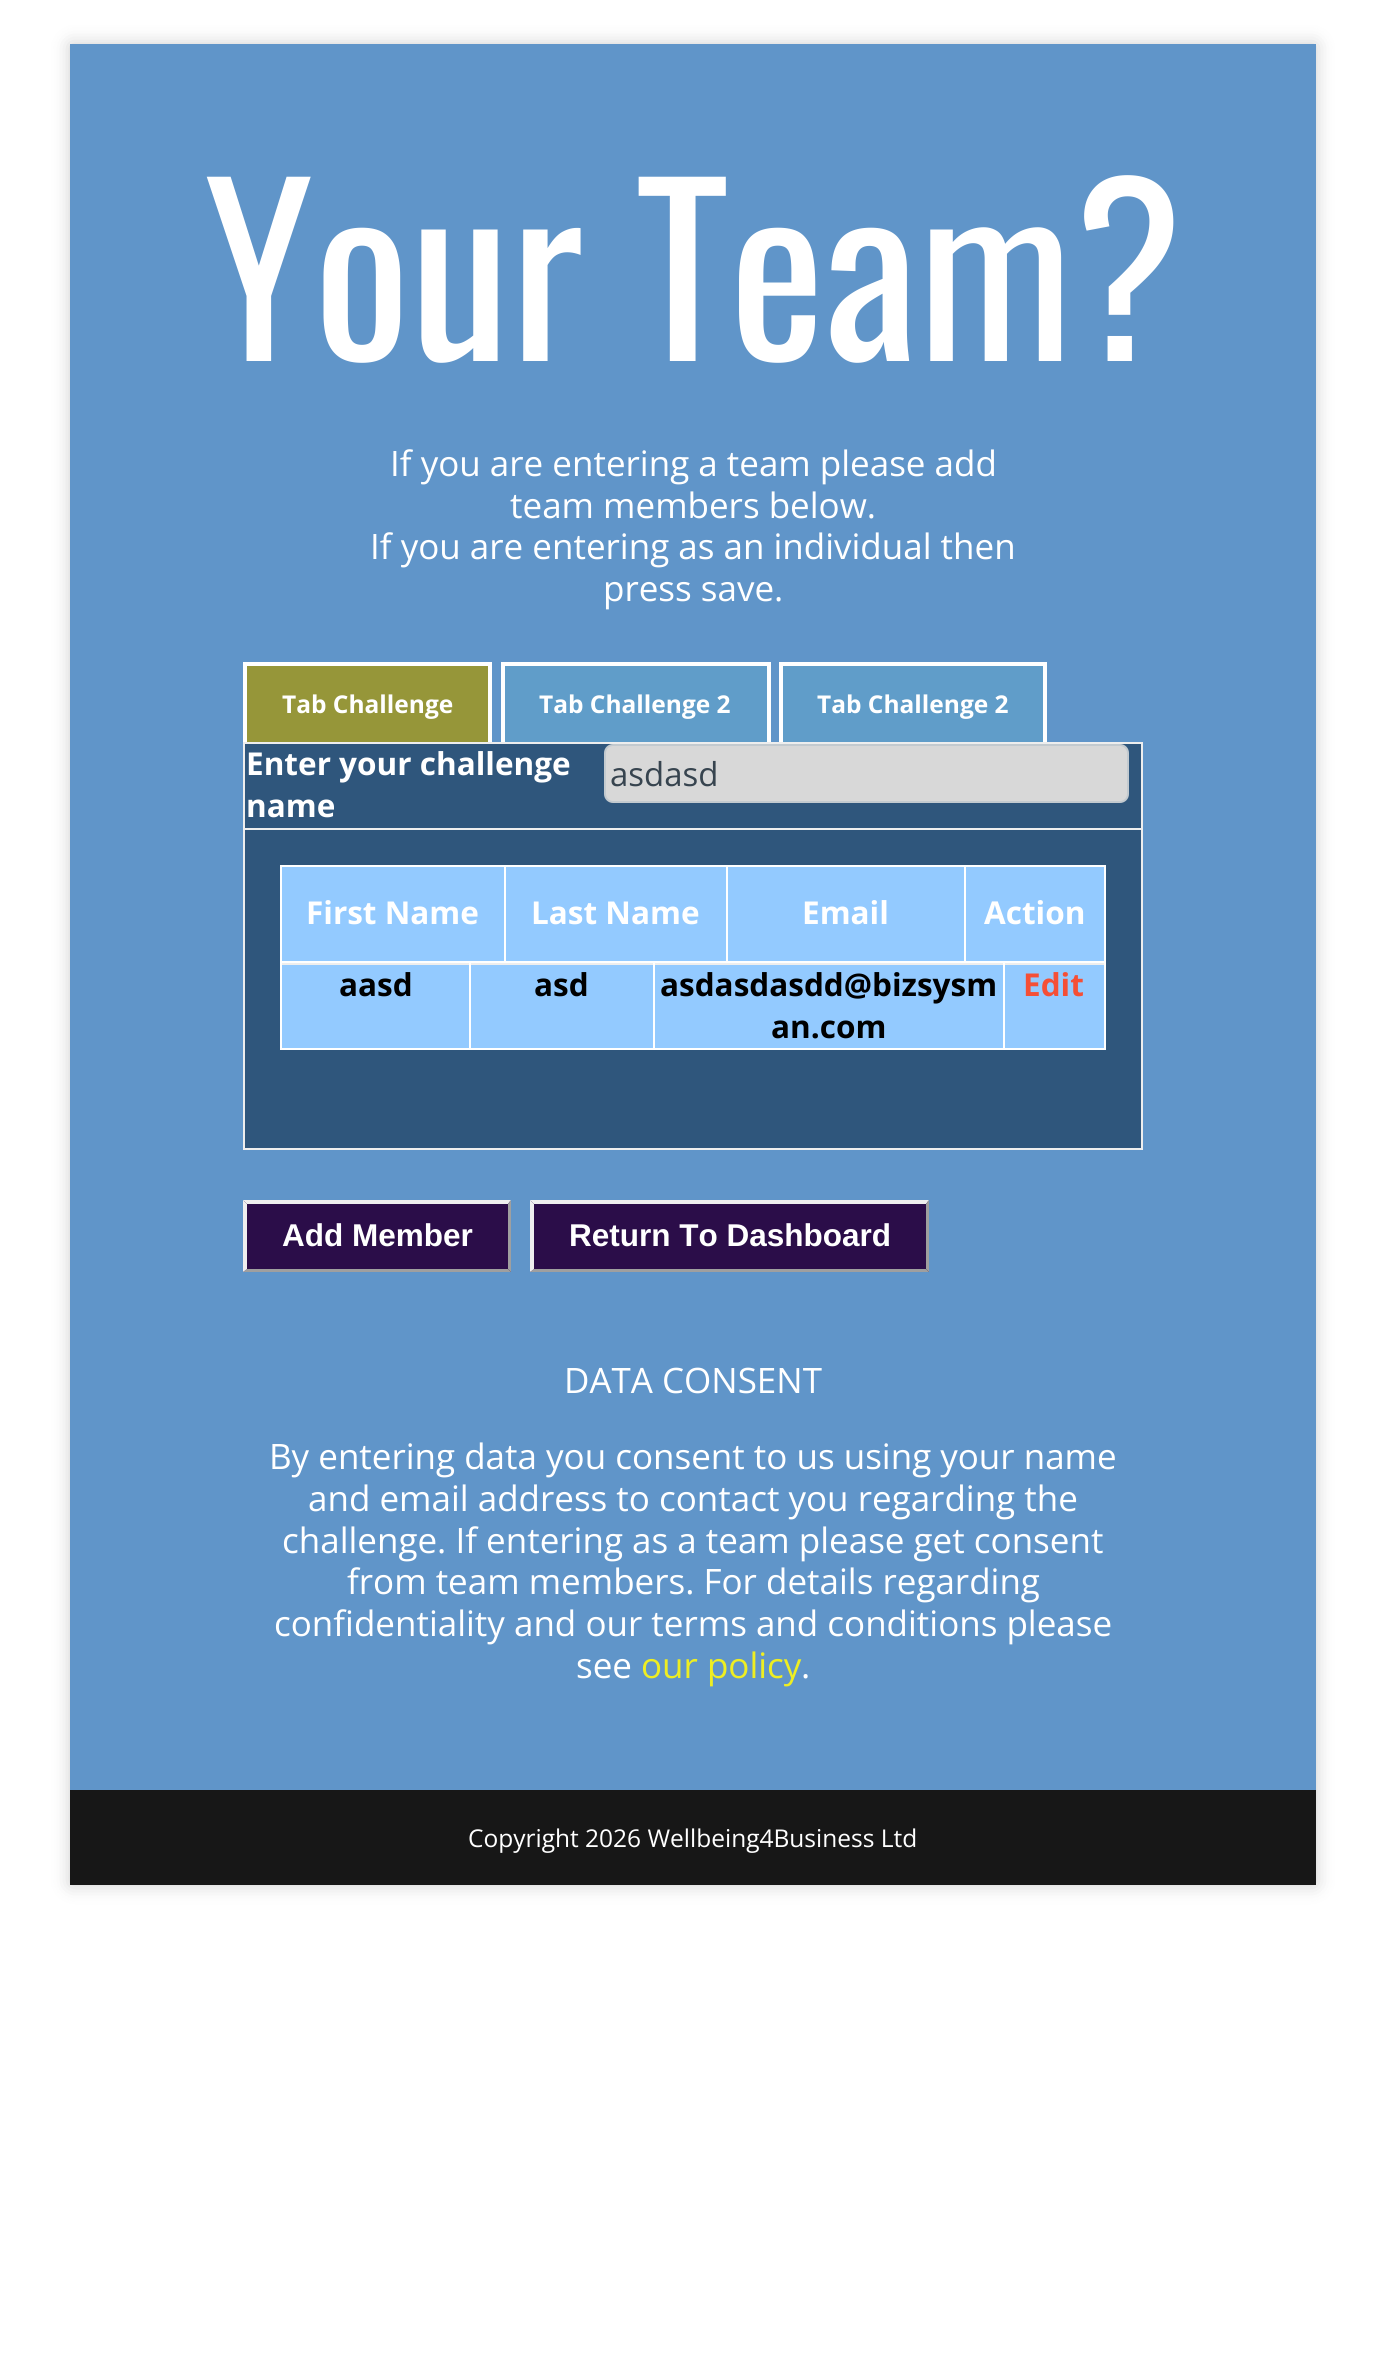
import math
import cairo

surface = cairo.ImageSurface(cairo.FORMAT_RGB24, 1386, 2378)
c = cairo.Context(surface)
options = cairo.FontOptions()
options.set_hint_metrics(cairo.HINT_METRICS_OFF)
options.set_hint_style(cairo.HINT_STYLE_NONE)
c.set_font_options(options)
c.set_miter_limit(4)
def C(code):
 c.set_source_rgb(*(v / 255 for v in bytes.fromhex(code[-6:])))
def F(family, size, italic, bold):
 c.select_font_face(family, cairo.FONT_SLANT_ITALIC if italic else cairo.FONT_SLANT_NORMAL, cairo.FONT_WEIGHT_BOLD if bold else cairo.FONT_WEIGHT_NORMAL)
 c.set_font_size(size)
def T(x, y, s):
 c.move_to(x, y)
 c.show_text(s)
def R(x, y, w, h):
 c.rectangle(x, y, w, h)
 c.fill()
def Q(x, y, w, h, r):
 c.new_sub_path()
 for i, (u, v) in enumerate([(x + w - r, y + h - r), (x + r, y + h - r), (x + r, y + r), (x + w - r, y + r)]):
  c.arc(u, v, r, i * math.pi / 2, (i + 1) * math.pi / 2)
 c.close_path()
def S(x, y, w, h, r, blur, alpha):
 c.push_group_with_content(cairo.CONTENT_ALPHA)
 c.set_operator(cairo.OPERATOR_SOURCE)
 for i in range(15, -16, -2):
  e = blur * i / 6
  if min(w, h) + 2 * e > 0:
   c.set_source_rgba(0, 0, 0, alpha * math.erfc((i - 1) / 8.5) / 2)
   Q(x - e, y - e, w + 2 * e, h + 2 * e, max(0, min(r + e + blur * .6, min(w, h) / 2 + e)))
   c.fill()
 c.mask(c.pop_group())
C('ffffff')
c.paint()
C('000000')
S(70,44,1246,1841,0,9,.2)
C('6095c9')
R(70,44,1246,1746)
F('Oswald',227.5,0,0)
C('ffffff')
T(204,361,'Your Team?')
F('Open Sans',35,0,0)
T(390,476,'If you are entering a team please add')
T(510,518,'team members below.')
T(370,559,'If you are entering as an individual then')
T(603,601,'press save.')
C('969639')
R(247,666,241,76)
C('ffffff')
R(243,662,249,4)
R(488,662,4,80)
R(243,662,4,80)
F('Open Sans',24.5,0,1)
T(282,713,'Tab Challenge')
C('609dc9')
R(505,666,262,76)
C('ffffff')
R(501,662,269,4)
R(767,662,4,80)
R(501,662,4,80)
T(539,713,'Tab Challenge 2')
C('609dc9')
R(783,666,260,76)
C('ffffff')
R(779,662,268,4)
R(1043,662,4,80)
R(779,662,4,80)
T(817,713,'Tab Challenge 2')
C('eeeeee')
R(243,742,900,2)
R(1141,742,2,408)
R(243,1148,900,2)
R(243,742,2,408)
C('2f567c')
R(245,744,896,404)
F('Open Sans',31.5,0,1)
C('ffffff')
T(246,775,'Enter your challenge')
T(246,817,'name')
C('d8d8d8')
Q(605,745,523,57,8)
c.fill_preserve()
C('c3cacf')
c.stroke()
F('Open Sans',33,0,0)
C('37444f')
T(610,786,'asdasd')
C('eeeeee')
R(243,828,900,2)
C('ffffff')
R(280,865,826,2)
R(1104,865,2,98)
R(280,961,826,2)
R(280,865,2,98)
C('93caff')
R(282,867,822,94)
F('Open Sans',31.5,0,1)
C('ffffff')
T(306,924,'First Name')
R(504,865,2,98)
T(531,924,'Last Name')
R(726,865,2,98)
T(802,924,'Email')
R(964,865,2,98)
T(984,924,'Action')
R(280,1048,826,2)
C('93caff')
R(282,965,822,83)
C('eeeeee')
R(280,963,826,2)
C('ffffff')
R(469,963,2,87)
R(280,963,2,87)
C('000000')
T(339,996,'aasd')
C('ffffff')
R(653,963,2,87)
C('000000')
T(534,996,'asd')
C('ffffff')
R(1003,963,2,87)
C('000000')
T(660,996,'asdasdasdd@bizsysm')
T(771,1038,'an.com')
C('ffffff')
R(1104,963,2,87)
C('f54f36')
T(1023,996,'Edit')
C('2b0d49')
R(243,1201,268,71)
C('efefef')
c.new_path()
c.move_to(243,1200)
c.line_to(511,1200)
c.line_to(508,1204)
c.line_to(247,1204)
c.close_path()
c.fill()
C('9f9f9f')
c.new_path()
c.move_to(511,1200)
c.line_to(511,1272)
c.line_to(508,1269)
c.line_to(508,1204)
c.close_path()
c.fill()
c.new_path()
c.move_to(511,1272)
c.line_to(243,1272)
c.line_to(247,1269)
c.line_to(508,1269)
c.close_path()
c.fill()
C('efefef')
c.new_path()
c.move_to(243,1272)
c.line_to(243,1200)
c.line_to(247,1204)
c.line_to(247,1269)
c.close_path()
c.fill()
F('Liberation Sans',31.5,0,1)
C('ffffff')
T(282,1246,'Add Member')
C('2b0d49')
R(530,1201,399,71)
C('efefef')
c.new_path()
c.move_to(530,1200)
c.line_to(929,1200)
c.line_to(926,1204)
c.line_to(534,1204)
c.close_path()
c.fill()
C('9f9f9f')
c.new_path()
c.move_to(929,1200)
c.line_to(929,1272)
c.line_to(926,1269)
c.line_to(926,1204)
c.close_path()
c.fill()
c.new_path()
c.move_to(929,1272)
c.line_to(530,1272)
c.line_to(534,1269)
c.line_to(926,1269)
c.close_path()
c.fill()
C('efefef')
c.new_path()
c.move_to(530,1272)
c.line_to(530,1200)
c.line_to(534,1204)
c.line_to(534,1269)
c.close_path()
c.fill()
C('ffffff')
T(569,1246,'Return To Dashboard')
F('Open Sans',35,0,0)
T(564,1393,'DATA CONSENT')
T(269,1469,'By entering data you consent to us using your name')
T(308,1511,'and email address to contact you regarding the')
T(282,1553,'challenge. If entering as a team please get consent')
T(347,1594,'from team members. For details regarding')
T(274,1636,'confidentiality and our terms and conditions please')
T(576,1678,'see')
C('eeee22')
T(641,1678,'our policy')
C('ffffff')
T(801,1678,'.')
C('171717')
R(70,1790,1246,95)
F('Open Sans',24.5,0,0)
C('ffffff')
T(468,1847,'Copyright 2026 Wellbeing4Business Ltd')
surface.write_to_png('o.png')
